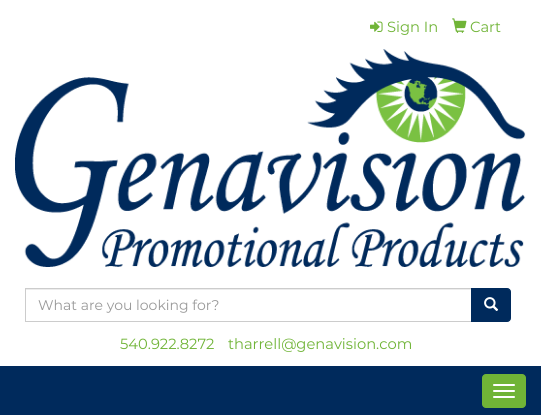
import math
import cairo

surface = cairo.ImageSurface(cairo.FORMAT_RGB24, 541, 415)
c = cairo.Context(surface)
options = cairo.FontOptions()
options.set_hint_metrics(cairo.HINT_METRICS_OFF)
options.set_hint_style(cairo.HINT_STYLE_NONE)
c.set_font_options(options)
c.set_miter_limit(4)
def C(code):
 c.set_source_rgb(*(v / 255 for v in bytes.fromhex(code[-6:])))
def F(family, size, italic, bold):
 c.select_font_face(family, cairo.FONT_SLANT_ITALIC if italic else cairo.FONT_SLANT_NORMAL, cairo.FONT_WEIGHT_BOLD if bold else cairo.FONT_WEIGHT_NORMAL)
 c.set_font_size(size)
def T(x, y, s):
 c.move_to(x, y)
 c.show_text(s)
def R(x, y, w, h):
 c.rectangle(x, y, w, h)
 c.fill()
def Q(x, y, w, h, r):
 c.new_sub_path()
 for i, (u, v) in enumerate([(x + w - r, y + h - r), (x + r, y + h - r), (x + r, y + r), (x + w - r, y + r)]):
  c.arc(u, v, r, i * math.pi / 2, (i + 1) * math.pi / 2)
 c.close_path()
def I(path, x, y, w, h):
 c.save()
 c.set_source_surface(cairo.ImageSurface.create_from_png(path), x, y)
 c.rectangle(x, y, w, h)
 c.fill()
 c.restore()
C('ffffff')
c.paint()
I('1.png',370,21,13,11)
F('Montserrat Thin',14.7,0,0)
C('70b437')
T(387,32,'Sign In')
I('2.png',452,18,15,15)
T(470,32,'Cart')
I('3.png',15,49,511,218)
C('ececec')
R(26,289,445,1)
c.rectangle(25.5,288.5,446,33)
C('cccccc')
c.set_line_width(1)
c.stroke()
F('Montserrat Thin',14,0,0)
C('999999')
T(38,310,'What are you looking for?')
C('002a5c')
c.new_path()
c.move_to(471.5,288.5)
c.line_to(507,288.5)
c.curve_to(509,288.5,510.5,290,510.5,292)
c.line_to(510.5,318)
c.curve_to(510.5,320,509,321.5,507,321.5)
c.line_to(471.5,321.5)
c.close_path()
c.fill_preserve()
c.stroke()
I('4.png',484,297,15,14)
F('Montserrat Thin',14.7,0,0)
C('70b437')
T(120,349,'540.922.8272')
T(228,349,'tharrell@genavision.com')
C('002a5c')
R(0,366,541,49)
C('70b437')
Q(482.5,374.5,43,33,3.5)
c.fill_preserve()
c.stroke()
C('ffffff')
Q(493,384,22,2,1)
c.fill()
Q(493,390,22,2,1)
c.fill()
Q(493,396,22,2,1)
c.fill()
surface.write_to_png('o.png')
